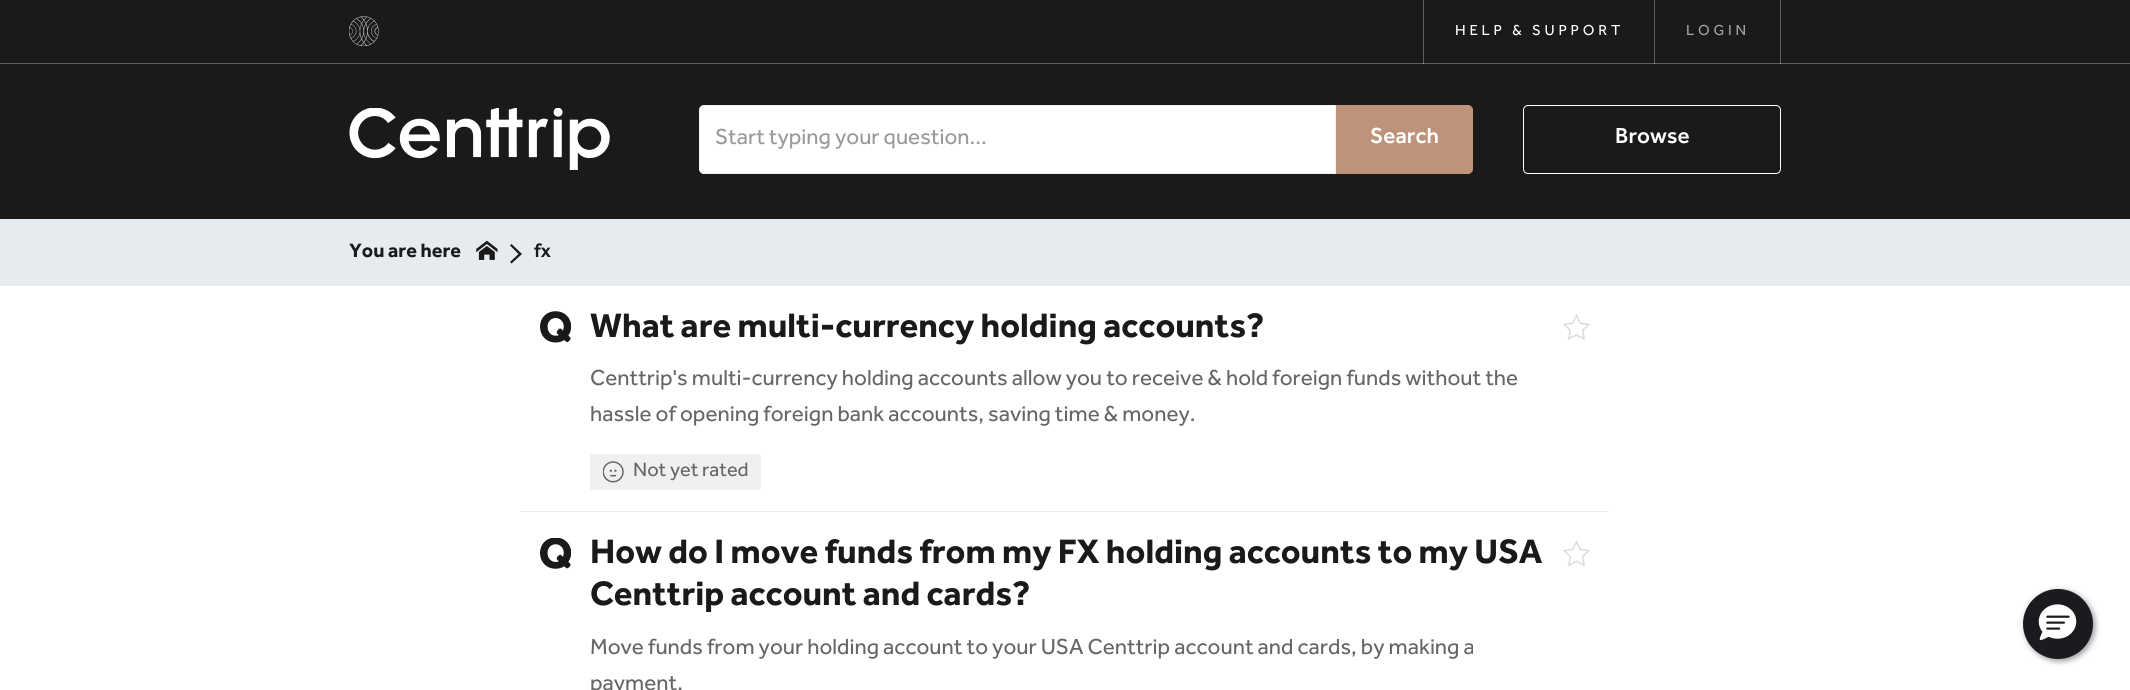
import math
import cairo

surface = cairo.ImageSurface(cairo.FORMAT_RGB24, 2130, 690)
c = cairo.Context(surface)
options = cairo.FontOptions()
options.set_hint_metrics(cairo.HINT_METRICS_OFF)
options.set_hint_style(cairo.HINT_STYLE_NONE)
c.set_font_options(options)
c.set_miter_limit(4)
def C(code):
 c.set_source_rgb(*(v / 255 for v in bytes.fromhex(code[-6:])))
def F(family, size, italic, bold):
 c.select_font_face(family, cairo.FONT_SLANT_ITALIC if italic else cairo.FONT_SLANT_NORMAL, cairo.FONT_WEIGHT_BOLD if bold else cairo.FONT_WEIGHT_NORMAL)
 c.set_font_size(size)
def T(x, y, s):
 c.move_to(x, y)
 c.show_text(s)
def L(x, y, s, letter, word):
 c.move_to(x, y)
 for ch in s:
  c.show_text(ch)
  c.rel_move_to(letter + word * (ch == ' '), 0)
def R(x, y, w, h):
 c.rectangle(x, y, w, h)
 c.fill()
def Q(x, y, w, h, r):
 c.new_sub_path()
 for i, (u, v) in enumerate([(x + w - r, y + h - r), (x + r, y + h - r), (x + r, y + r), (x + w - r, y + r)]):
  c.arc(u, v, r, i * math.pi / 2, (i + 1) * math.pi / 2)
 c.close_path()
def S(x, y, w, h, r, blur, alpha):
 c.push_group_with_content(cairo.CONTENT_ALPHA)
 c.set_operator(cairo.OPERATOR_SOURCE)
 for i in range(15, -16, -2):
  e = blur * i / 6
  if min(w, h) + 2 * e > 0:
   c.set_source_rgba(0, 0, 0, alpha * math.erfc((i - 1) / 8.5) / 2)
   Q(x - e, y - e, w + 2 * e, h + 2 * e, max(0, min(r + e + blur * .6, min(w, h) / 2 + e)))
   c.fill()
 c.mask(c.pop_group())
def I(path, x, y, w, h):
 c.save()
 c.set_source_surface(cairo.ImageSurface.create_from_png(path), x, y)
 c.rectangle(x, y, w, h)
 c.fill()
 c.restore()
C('ffffff')
c.paint()
C('1a1a1a')
R(0,0,2130,63)
C('5f5f5f')
R(1654,0,1,64)
R(1423,0,1,64)
R(1780,0,1,64)
R(0,63,2130,1)
C('8f8f8f')
R(1654,63,1,1)
R(1423,63,1,1)
R(1780,63,1,1)
I('1.png',349,16,30,30)
F('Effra',15,0,0)
C('ffffff')
L(1455,35,'HELP & SUPPORT',3.75,0)
C('a3a3a3')
L(1686,35,'LOGIN',3.75,0)
C('1a1a1a')
R(0,64,2130,155)
I('2.png',349,108,261,62)
C('ffffff')
c.new_path()
c.move_to(704,105.5)
c.line_to(1335.5,105.5)
c.line_to(1335.5,173.5)
c.line_to(704,173.5)
c.curve_to(701.5,173.5,699.5,171.5,699.5,169)
c.line_to(699.5,110)
c.curve_to(699.5,107.5,701.5,105.5,704,105.5)
c.close_path()
c.fill_preserve()
C('f2f2f3')
c.set_line_width(1)
c.stroke()
F('Effra',22.5,0,0)
C('999999')
T(715,144,'Start typing your question...')
C('be9379')
c.new_path()
c.move_to(1336.5,105.5)
c.line_to(1468,105.5)
c.curve_to(1470.5,105.5,1472.5,107.5,1472.5,110)
c.line_to(1472.5,169)
c.curve_to(1472.5,171.5,1470.5,173.5,1468,173.5)
c.line_to(1336.5,173.5)
c.close_path()
c.fill_preserve()
c.stroke()
F('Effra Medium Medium',22.5,0,0)
C('ffffff')
T(1370,143,'Search')
Q(1523.5,105.5,257,68,4.5)
c.stroke()
T(1615,143,'Browse')
C('e5ebee')
R(0,219,2130,67)
F('Effra',20,0,1)
C('1a1a1a')
T(349,257,'You are here')
I('3.png',476,240,22,20)
c.new_path()
c.move_to(510,245.5)
c.line_to(518.5,254)
c.line_to(510,262)
c.line_to(511.5,263.5)
c.line_to(522,254)
c.line_to(511.5,244)
c.close_path()
c.fill()
F('Effra Medium Medium',20,0,0)
T(534,257,'fx')
C('e5ebee')
R(521,511,1088,1)
I('4.png',540,311,31,32)
F('Effra',35,0,1)
C('1a1a1a')
T(590,337,'What are multi-currency holding accounts?')
F('Effra',22.5,0,0)
C('666666')
T(590,385,'Centtrip\'s multi-currency holding accounts allow you to receive & hold foreign funds without the')
T(590,421,'hassle of opening foreign bank accounts, saving time & money.')
C('f0f0f0')
Q(590,454,171,36,2.5)
c.fill()
I('5.png',603,461,21,22)
F('Effra',20,0,0)
C('666666')
T(633,476,'Not yet rated')
I('6.png',1563,314,27,27)
I('7.png',540,538,31,31)
F('Effra',35,0,1)
C('1a1a1a')
T(590,563,'How do I move funds from my FX holding accounts to my USA')
T(590,605,'Centtrip account and cards?')
F('Effra',22.5,0,0)
C('666666')
T(590,654,'Move funds from your holding account to your USA Centtrip account and cards, by making a')
T(590,690,'payment.')
I('8.png',1562,540,28,27)
C('2d2d2d')
S(2025,591,70,70,35,3,.5)
C('1a1b1e')
c.arc(2058,624,35,0,2 * math.pi)
c.fill()
I('9.png',2038,604,39,37)
surface.write_to_png('o.png')
